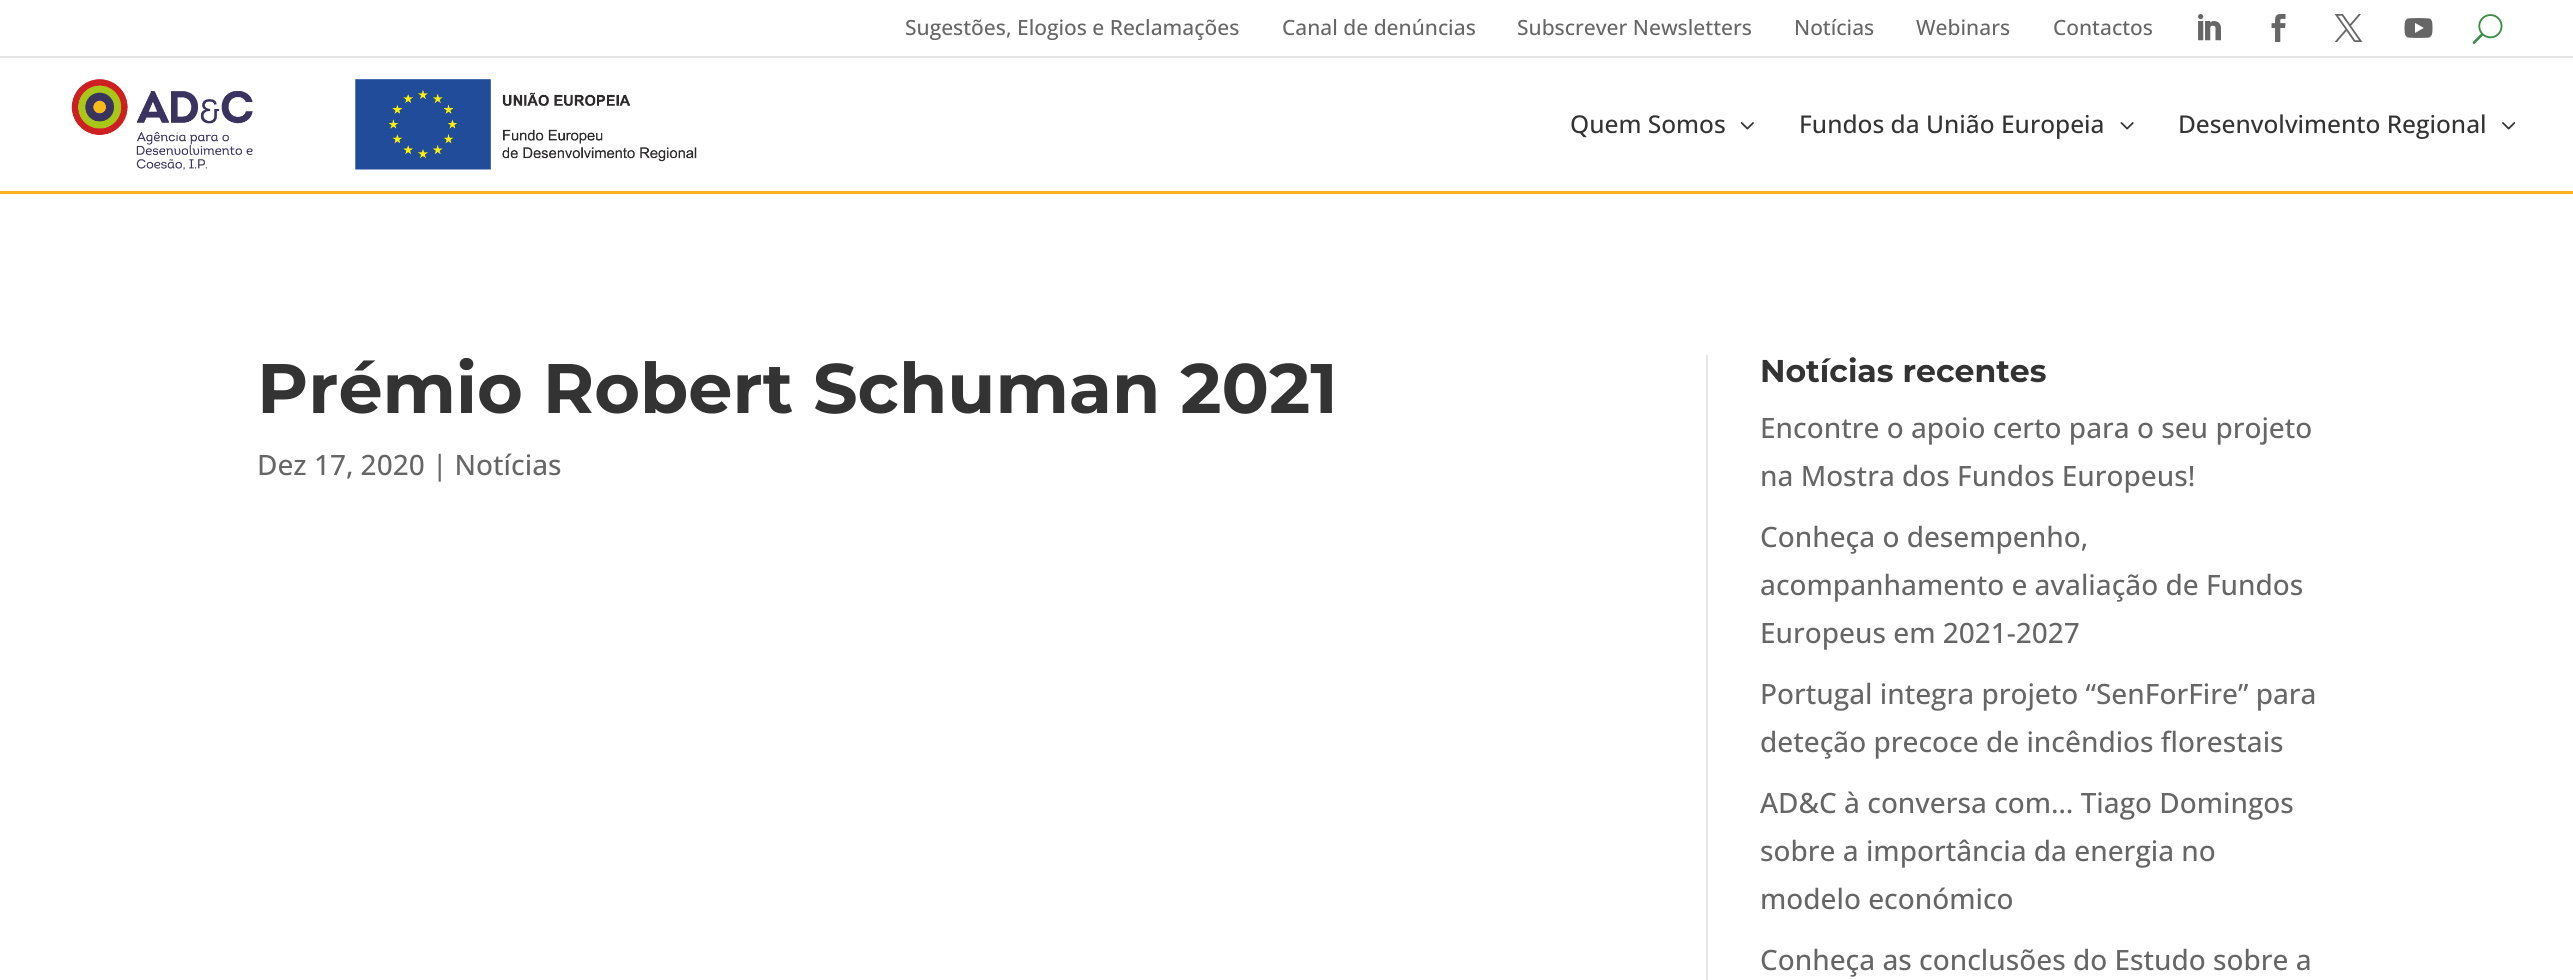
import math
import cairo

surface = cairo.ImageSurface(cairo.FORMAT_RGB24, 2573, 980)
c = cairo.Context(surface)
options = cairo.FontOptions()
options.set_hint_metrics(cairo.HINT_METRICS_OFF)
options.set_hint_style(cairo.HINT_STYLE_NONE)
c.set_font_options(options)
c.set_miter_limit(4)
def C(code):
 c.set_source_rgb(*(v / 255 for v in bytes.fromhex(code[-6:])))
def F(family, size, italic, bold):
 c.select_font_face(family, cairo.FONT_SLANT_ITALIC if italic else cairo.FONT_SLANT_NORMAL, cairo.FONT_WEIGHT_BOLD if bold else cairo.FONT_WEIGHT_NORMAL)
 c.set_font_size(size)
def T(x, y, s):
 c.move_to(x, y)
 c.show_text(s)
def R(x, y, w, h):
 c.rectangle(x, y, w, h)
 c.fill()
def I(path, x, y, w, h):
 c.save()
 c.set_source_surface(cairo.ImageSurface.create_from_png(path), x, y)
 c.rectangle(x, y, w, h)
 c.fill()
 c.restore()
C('fab31a')
c.paint()
C('ffffff')
R(0,0,2573,191)
C('e6e6e6')
R(0,56,2573,2)
F('Open Sans Medium',21,0,0)
C('666666')
T(905,35,'Sugestões, Elogios e Reclamações')
T(1282,35,'Canal de denúncias')
T(1517,35,'Subscrever Newsletters')
T(1794,35,'Notícias')
T(1916,35,'Webinars')
T(2053,35,'Contactos')
I('1.png',2198,14,23,27)
I('2.png',2271,14,15,28)
I('3.png',2334,14,29,28)
I('4.png',2404,18,29,20)
I('5.png',2472,14,31,30)
I('6.png',71,79,626,91)
F('Open Sans Medium',24.5,0,0)
C('333333')
T(1570,133,'Quem Somos')
I('7.png',1740,122,14,8)
T(1799,133,'Fundos da União Europeia')
I('8.png',2120,122,14,8)
T(2178,133,'Desenvolvimento Regional')
I('9.png',2502,122,14,8)
C('ffffff')
R(0,194,2573,786)
F('Montserrat Thin',70,0,0)
C('333333')
T(257,413,'Prémio Robert Schuman 2021')
F('Open Sans Medium',28,0,0)
C('666666')
T(257,475,'Dez 17, 2020 | Notícias')
C('e6e6e6')
R(1706,355,2,625)
F('Montserrat Thin',31.5,0,0)
C('333333')
T(1760,382,'Notícias recentes')
F('Open Sans Medium',28,0,0)
C('666666')
T(1760,438,'Encontre o apoio certo para o seu projeto')
T(1760,486,'na Mostra dos Fundos Europeus!')
T(1760,547,'Conheça o desempenho,')
T(1760,595,'acompanhamento e avaliação de Fundos')
T(1760,643,'Europeus em 2021-2027')
T(1760,704,'Portugal integra projeto “SenForFire” para')
T(1760,752,'deteção precoce de incêndios florestais')
T(1760,813,'AD&C à conversa com… Tiago Domingos')
T(1760,861,'sobre a importância da energia no')
T(1760,909,'modelo económico')
T(1760,970,'Conheça as conclusões do Estudo sobre a')
surface.write_to_png('o.png')
